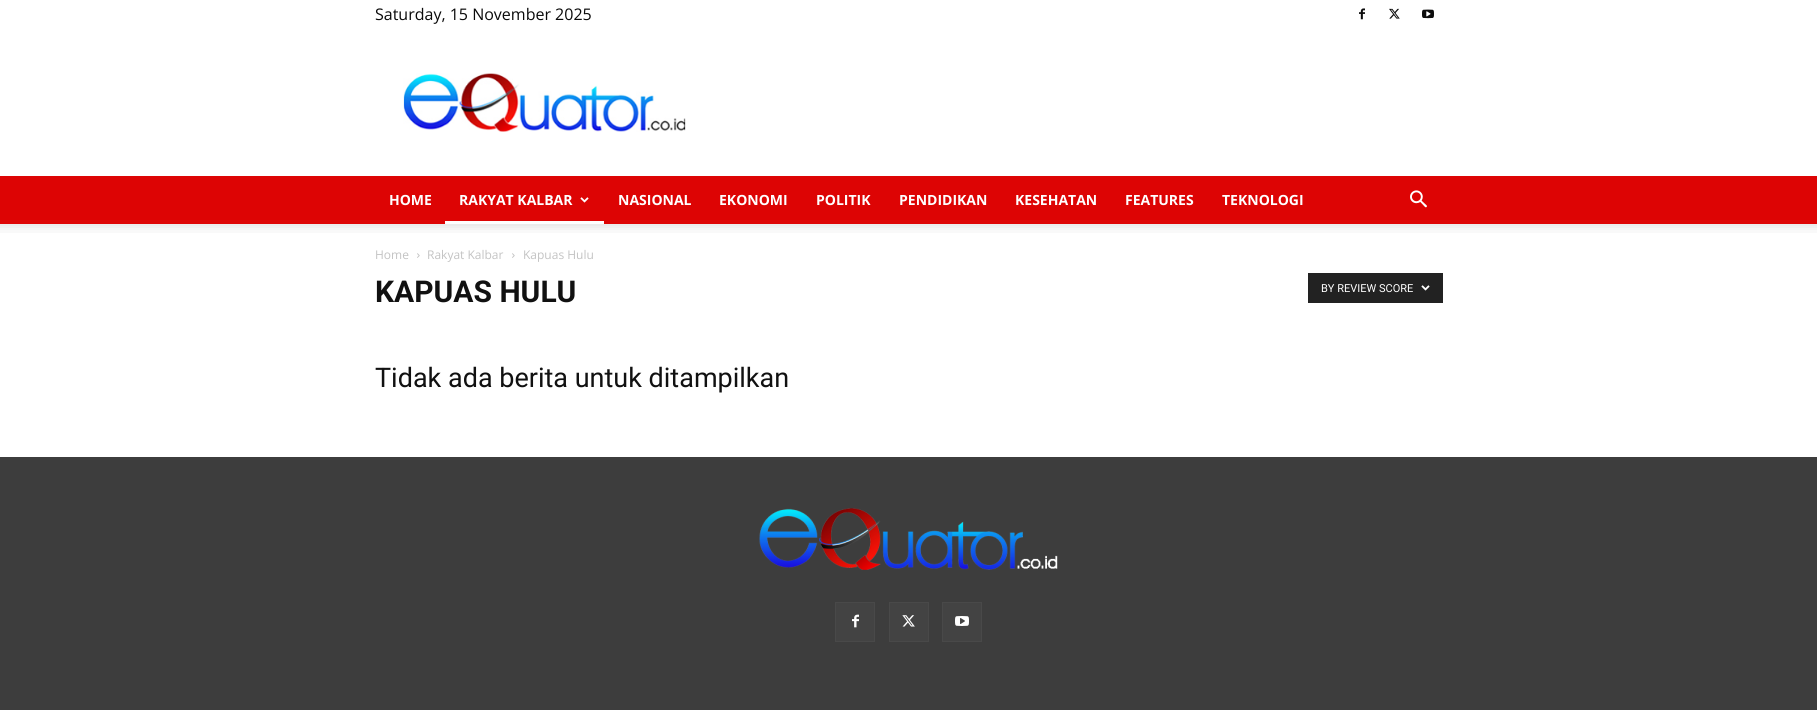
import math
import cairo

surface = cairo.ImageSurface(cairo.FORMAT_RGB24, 1817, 710)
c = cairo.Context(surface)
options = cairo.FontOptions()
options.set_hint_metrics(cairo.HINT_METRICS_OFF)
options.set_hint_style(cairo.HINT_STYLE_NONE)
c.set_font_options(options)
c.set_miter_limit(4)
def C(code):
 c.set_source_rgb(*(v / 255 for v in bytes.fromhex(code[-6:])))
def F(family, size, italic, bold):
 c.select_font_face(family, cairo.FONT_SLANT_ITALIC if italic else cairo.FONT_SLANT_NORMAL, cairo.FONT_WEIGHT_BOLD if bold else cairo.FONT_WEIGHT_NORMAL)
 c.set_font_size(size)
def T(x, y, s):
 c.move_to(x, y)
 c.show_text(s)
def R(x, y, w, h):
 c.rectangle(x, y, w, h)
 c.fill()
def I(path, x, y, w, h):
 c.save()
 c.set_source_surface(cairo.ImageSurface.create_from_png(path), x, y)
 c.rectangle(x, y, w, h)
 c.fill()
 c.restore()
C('ffffff')
c.paint()
F('Open Sans',16,0,0)
C('0a0a0a')
T(375,20,'Saturday, 15 November 2025')
I('1.png',1359,8,6,12)
I('2.png',1389,8,11,11)
I('3.png',1422,9,12,10)
I('4.png',403,73,283,59)
C('dd0404')
R(0,176,1817,48)
F('Open Sans',14,0,1)
C('ffffff')
T(389,205,'HOME')
T(459,205,'RAKYAT KALBAR')
I('5.png',580,197,9,6)
R(445,221,159,3)
T(618,205,'NASIONAL')
T(719,205,'EKONOMI')
T(816,205,'POLITIK')
T(899,205,'PENDIDIKAN')
T(1015,205,'KESEHATAN')
T(1125,205,'FEATURES')
T(1222,205,'TEKNOLOGI')
I('6.png',1410,190,17,18)
I('7.png',0,224,1817,9)
F('Open Sans',12,0,0)
C('c3c3c3')
T(375,259,'Home')
I('8.png',417,253,3,5)
T(427,259,'Rakyat Kalbar')
I('8.png',512,253,3,5)
T(523,259,'Kapuas Hulu')
F('Roboto',30,0,1)
C('111111')
T(375,302,'KAPUAS HULU')
C('222222')
R(1308,273,135,30)
F('Roboto',11,0,0)
C('ffffff')
T(1321,292,'BY REVIEW SCORE')
I('9.png',1421,285,9,6)
F('Roboto',27,0,0)
C('111111')
T(375,387,'Tidak ada berita untuk ditampilkan')
C('3d3d3d')
R(0,457,1817,253)
I('10.png',759,508,299,62)
C('434343')
R(836,603,38,38)
I('11.png',852,614,7,14)
c.rectangle(835.5,602.5,39,39)
C('494949')
c.set_line_width(1)
c.stroke()
C('434343')
R(890,603,38,38)
I('12.png',902,615,13,12)
c.rectangle(889.5,602.5,39,39)
C('494949')
c.stroke()
C('434343')
R(943,603,38,38)
I('13.png',955,616,14,10)
c.rectangle(942.5,602.5,39,39)
C('494949')
c.stroke()
surface.write_to_png('o.png')
